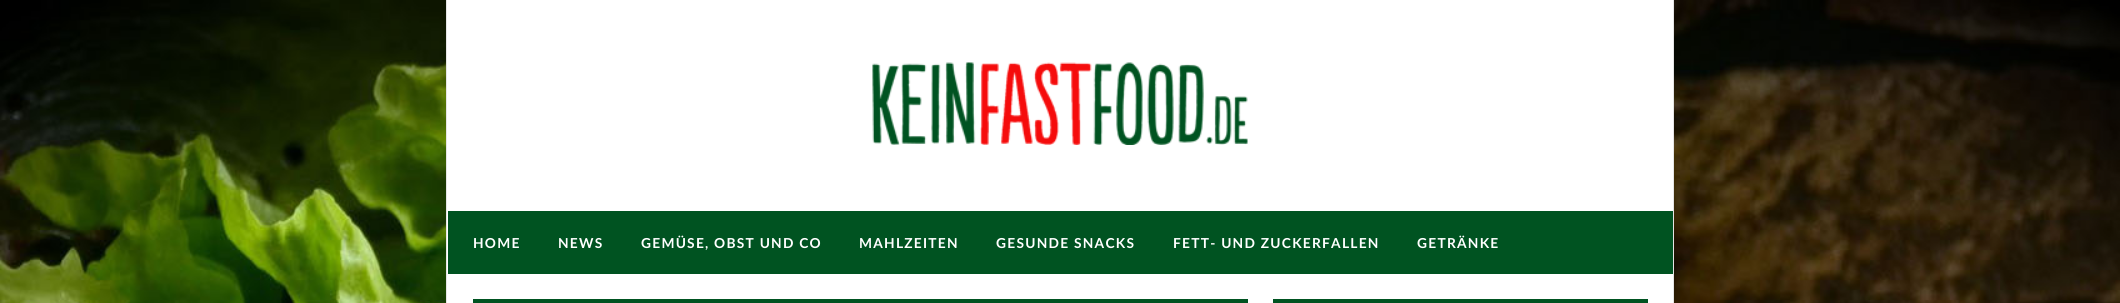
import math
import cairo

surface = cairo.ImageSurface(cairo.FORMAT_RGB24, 2120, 303)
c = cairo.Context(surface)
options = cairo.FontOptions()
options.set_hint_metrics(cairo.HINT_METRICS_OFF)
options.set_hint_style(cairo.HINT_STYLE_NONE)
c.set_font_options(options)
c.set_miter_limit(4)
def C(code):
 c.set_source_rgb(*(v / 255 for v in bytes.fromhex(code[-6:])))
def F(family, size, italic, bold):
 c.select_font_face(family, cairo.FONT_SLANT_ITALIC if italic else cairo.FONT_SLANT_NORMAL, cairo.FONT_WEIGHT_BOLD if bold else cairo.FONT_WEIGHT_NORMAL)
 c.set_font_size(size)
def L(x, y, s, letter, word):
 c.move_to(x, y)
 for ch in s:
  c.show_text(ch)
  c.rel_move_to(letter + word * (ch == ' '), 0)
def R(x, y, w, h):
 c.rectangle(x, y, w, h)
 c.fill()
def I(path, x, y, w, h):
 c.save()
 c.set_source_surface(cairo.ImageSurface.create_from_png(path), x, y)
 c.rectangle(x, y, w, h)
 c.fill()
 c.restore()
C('ffffff')
c.paint()
I('1.png',0,0,2120,303)
C('ffffff')
R(447,0,1226,303)
C('e5e5e5')
R(1673,0,1,303)
R(446,0,1,303)
I('2.png',872,62,376,83)
C('005321')
R(448,211,1225,63)
F('Lato',13.75,0,1)
C('ffffff')
L(473,248,'HOME',1.25,0)
L(558,248,'NEWS',1.25,0)
L(641,248,'GEMÜSE, OBST UND CO',1.25,0)
L(859,248,'MAHLZEITEN',1.25,0)
L(996,248,'GESUNDE SNACKS',1.25,0)
L(1173,248,'FETT- UND ZUCKERFALLEN',1.25,0)
L(1417,248,'GETRÄNKE',1.25,0)
C('005321')
R(473,299,775,4)
R(1273,299,375,4)
surface.write_to_png('o.png')
